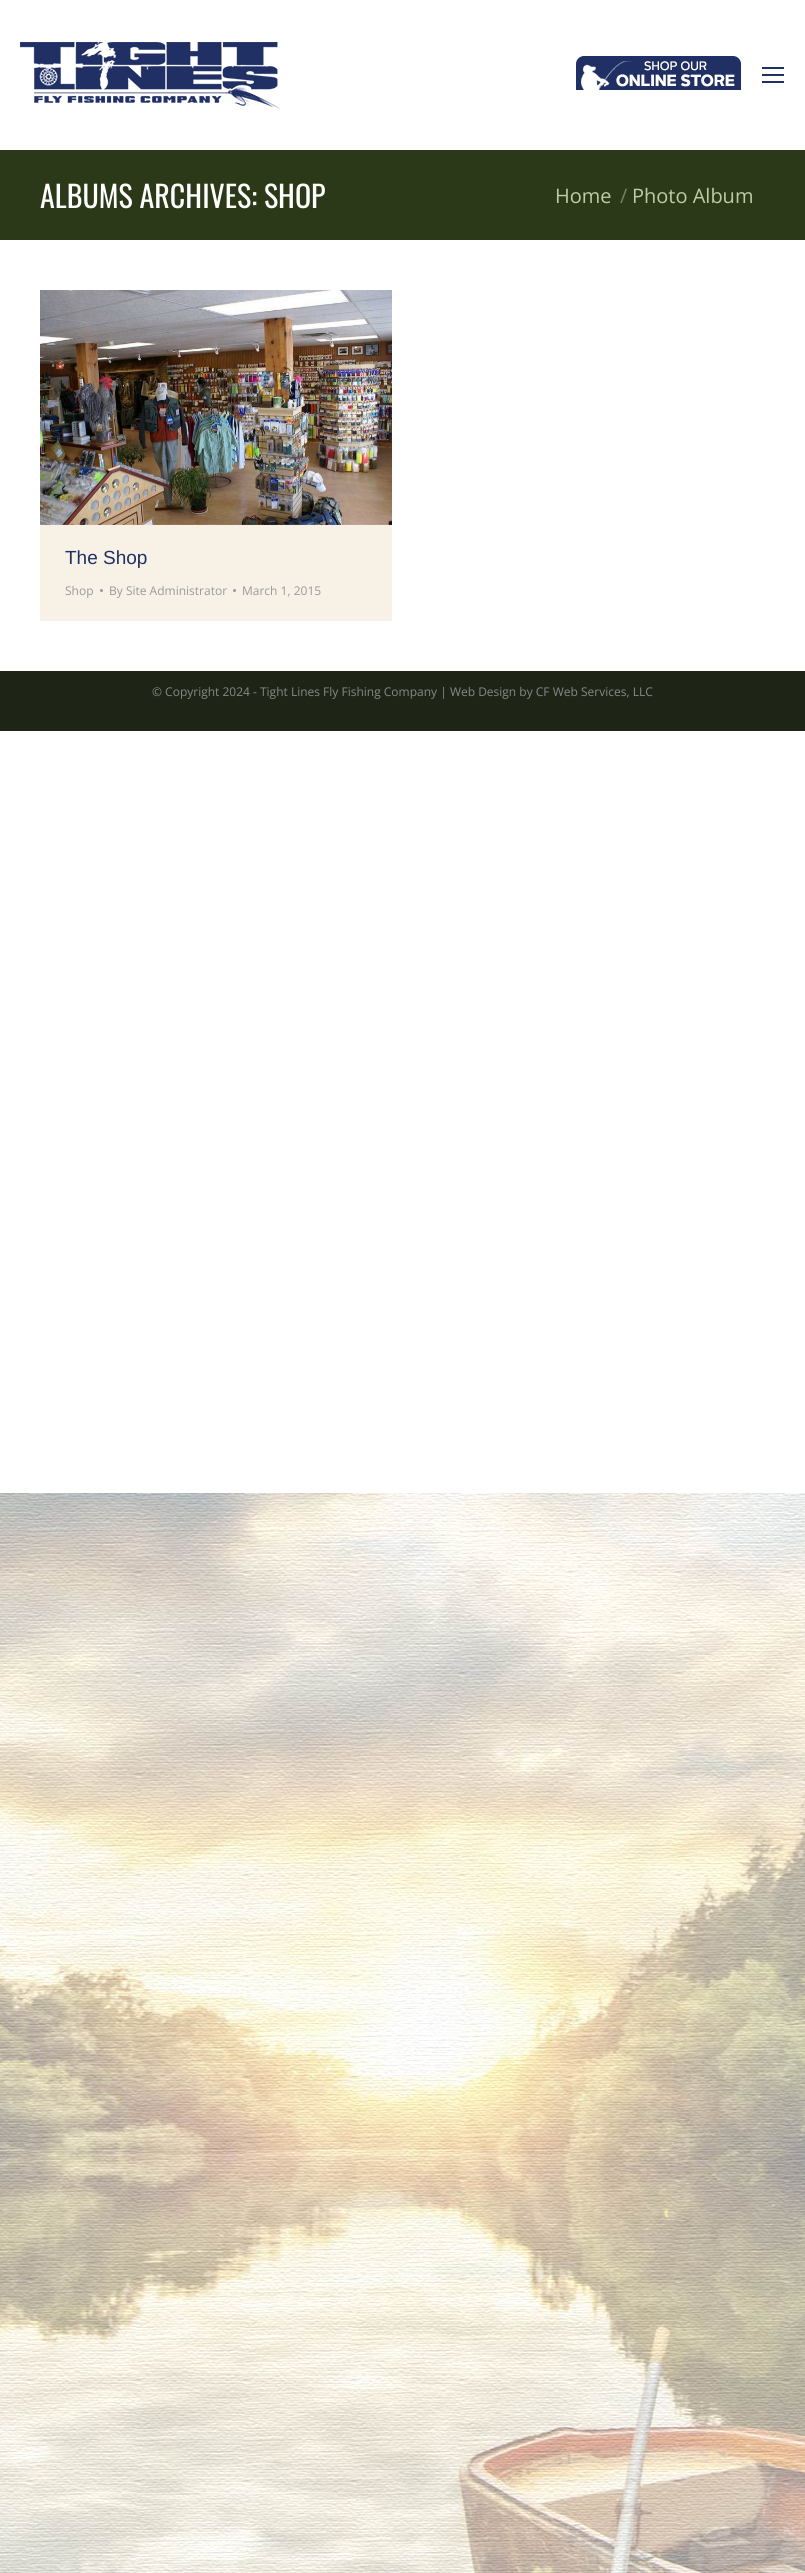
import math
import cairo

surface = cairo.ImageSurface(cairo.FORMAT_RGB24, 805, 2573)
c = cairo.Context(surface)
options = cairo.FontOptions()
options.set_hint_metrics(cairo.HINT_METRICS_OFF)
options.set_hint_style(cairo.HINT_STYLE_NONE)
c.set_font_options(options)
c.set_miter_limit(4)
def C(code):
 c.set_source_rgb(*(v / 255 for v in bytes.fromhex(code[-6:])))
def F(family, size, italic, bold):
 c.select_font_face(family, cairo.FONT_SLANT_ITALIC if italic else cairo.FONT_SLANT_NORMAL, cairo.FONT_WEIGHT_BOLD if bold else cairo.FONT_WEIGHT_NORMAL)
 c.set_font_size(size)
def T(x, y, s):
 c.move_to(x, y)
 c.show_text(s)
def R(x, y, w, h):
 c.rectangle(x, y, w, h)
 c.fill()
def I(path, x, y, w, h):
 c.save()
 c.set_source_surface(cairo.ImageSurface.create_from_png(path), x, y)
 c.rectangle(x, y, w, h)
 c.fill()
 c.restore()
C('ffffff')
c.paint()
I('1.png',0,1493,805,1080)
I('2.png',20,42,260,67)
I('3.png',576,56,165,34)
C('203065')
R(762,67,22,2)
R(762,74,22,2)
R(762,81,22,2)
C('2b3918')
R(0,150,805,90)
F('Oswald',30,0,0)
C('ffffff')
T(40,208,'ALBUMS ARCHIVES: SHOP')
F('Open Sans',20,0,0)
C('bdcca7')
T(555,203,'Home')
C('748360')
T(620,203,'/')
C('bdcca7')
T(632,203,'Photo Album')
C('f8f1e6')
R(40,524,352,97)
I('4.png',40,290,352,235)
F('Liberation Sans',19,0,0)
C('203065')
T(65,564,'The Shop')
F('Open Sans',12,0,0)
C('999999')
T(65,595,'Shop')
c.new_path()
c.arc(101.5,590.5,1.5,0,2 * math.pi)
c.fill()
T(109,595,'By Site Administrator')
c.new_path()
c.arc(234.5,590.5,1.5,0,2 * math.pi)
c.fill()
T(242,595,'March 1, 2015')
C('1e2416')
R(0,671,805,60)
C('888888')
T(152,696,'© Copyright 2024 - Tight Lines Fly Fishing Company | Web Design by CF Web Services, LLC')
surface.write_to_png('o.png')
